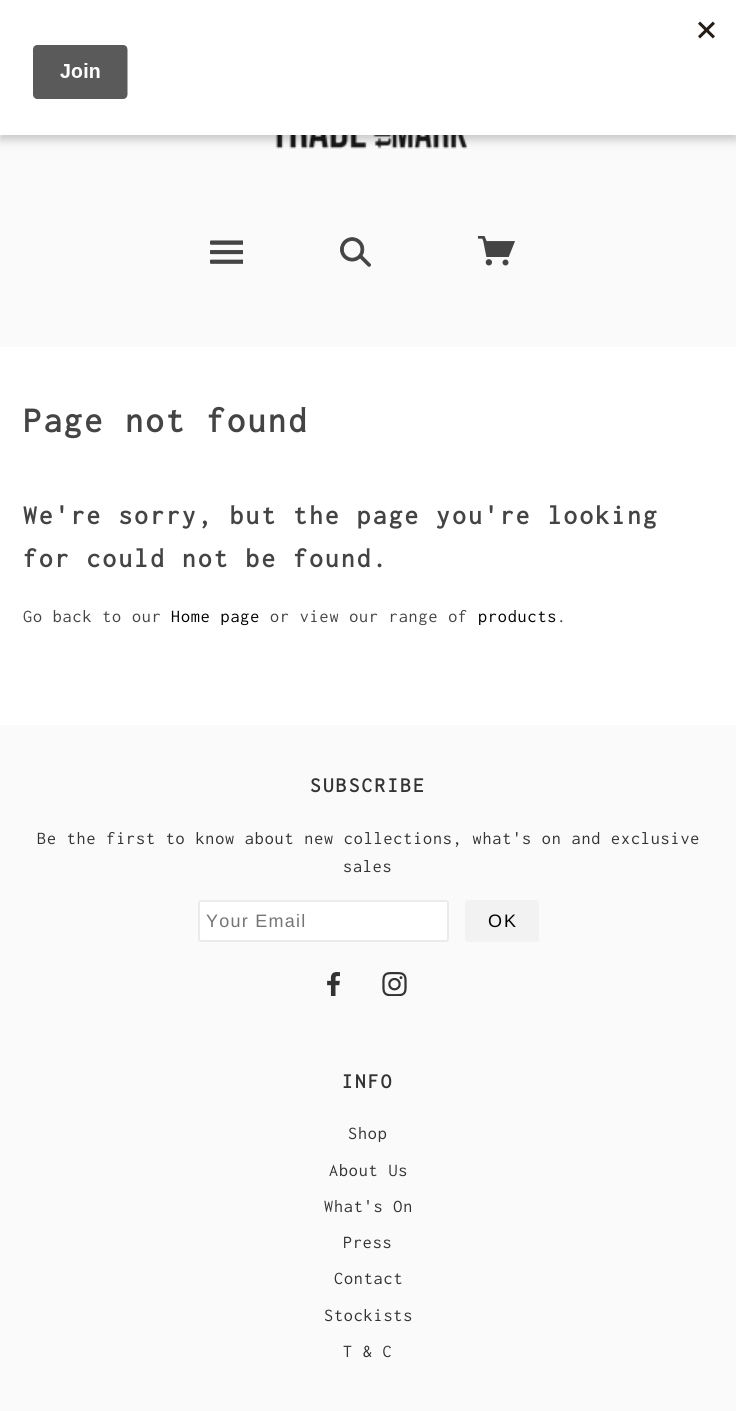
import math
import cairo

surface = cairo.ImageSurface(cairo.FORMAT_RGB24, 736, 1411)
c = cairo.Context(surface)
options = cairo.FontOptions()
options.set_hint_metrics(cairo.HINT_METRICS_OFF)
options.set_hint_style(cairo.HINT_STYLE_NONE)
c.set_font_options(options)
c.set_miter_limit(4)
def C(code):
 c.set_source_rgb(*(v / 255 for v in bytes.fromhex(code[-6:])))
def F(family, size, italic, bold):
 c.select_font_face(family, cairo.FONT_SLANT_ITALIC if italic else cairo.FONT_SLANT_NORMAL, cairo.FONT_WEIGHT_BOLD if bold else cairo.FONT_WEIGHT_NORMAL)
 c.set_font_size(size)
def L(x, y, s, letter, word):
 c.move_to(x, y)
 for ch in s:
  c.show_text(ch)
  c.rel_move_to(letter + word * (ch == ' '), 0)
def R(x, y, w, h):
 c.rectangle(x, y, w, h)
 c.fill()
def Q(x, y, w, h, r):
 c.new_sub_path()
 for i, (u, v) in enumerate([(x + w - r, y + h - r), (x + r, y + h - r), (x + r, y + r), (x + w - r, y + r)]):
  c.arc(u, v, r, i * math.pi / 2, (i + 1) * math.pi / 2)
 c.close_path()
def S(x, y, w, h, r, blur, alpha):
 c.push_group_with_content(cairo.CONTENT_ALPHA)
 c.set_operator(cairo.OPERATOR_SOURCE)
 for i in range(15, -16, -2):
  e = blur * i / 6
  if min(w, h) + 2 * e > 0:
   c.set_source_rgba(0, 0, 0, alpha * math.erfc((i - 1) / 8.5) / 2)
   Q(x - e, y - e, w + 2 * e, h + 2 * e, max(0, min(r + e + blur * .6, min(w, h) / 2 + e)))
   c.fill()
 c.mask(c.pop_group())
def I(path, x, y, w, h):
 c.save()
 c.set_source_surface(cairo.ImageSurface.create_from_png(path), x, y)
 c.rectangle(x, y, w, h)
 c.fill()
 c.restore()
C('ffffff')
c.paint()
C('fafafa')
R(0,135,736,212)
I('2.png',275,135,193,14)
C('000000')
S(0,5,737,135,0,4.5,.2)
C('ffffff')
R(0,0,736,135)
I('1.png',32,21,683,78)
I('3.png',210,240,33,24)
I('4.png',340,237,31,30)
I('5.png',477,236,38,30)
F('Inconsolata',36,0,1)
C('444444')
L(23,432,'Page not found',2.4,0)
F('Inconsolata',27,0,1)
L(23,524,'We\'re sorry, but the page you\'re looking',2.4,0)
L(23,567,'for could not be found.',2.4,0)
F('Inconsolata',18,0,0)
L(23,622,'Go back to our',.9,0)
C('000000')
L(171,622,'Home page',.9,0)
C('444444')
L(270,622,'or view our range of',.9,0)
C('000000')
L(478,622,'products',.9,0)
C('444444')
L(557,622,'.',.9,0)
C('fafafa')
R(0,725,736,686)
F('Inconsolata',21,0,1)
C('333333')
L(310,792,'SUBSCRIBE',2.4,0)
F('Inconsolata',18,0,0)
L(37,844,'Be the first to know about new collections, what\'s on and exclusive',.9,0)
L(343,872,'sales',.9,0)
C('ffffff')
Q(199,901,249,40,2)
c.fill_preserve()
C('ebebeb')
c.stroke()
F('Liberation Sans',18,0,0)
C('757575')
L(206,927,'Your Email',1.25,0)
C('f2f2f2')
Q(465,900,74,42,3)
c.fill()
C('000000')
L(488,927,'OK',2,0)
I('6.png',327,972,13,24)
I('7.png',382,972,25,24)
F('Inconsolata',21,0,1)
C('333333')
L(342,1088,'INFO',2.4,0)
F('Inconsolata',18,0,0)
L(348,1139,'Shop',.9,0)
L(329,1176,'About Us',.9,0)
L(324,1212,'What\'s On',.9,0)
L(343,1248,'Press',.9,0)
L(334,1284,'Contact',.9,0)
L(324,1321,'Stockists',.9,0)
L(343,1357,'T & C',.9,0)
surface.write_to_png('o.png')
